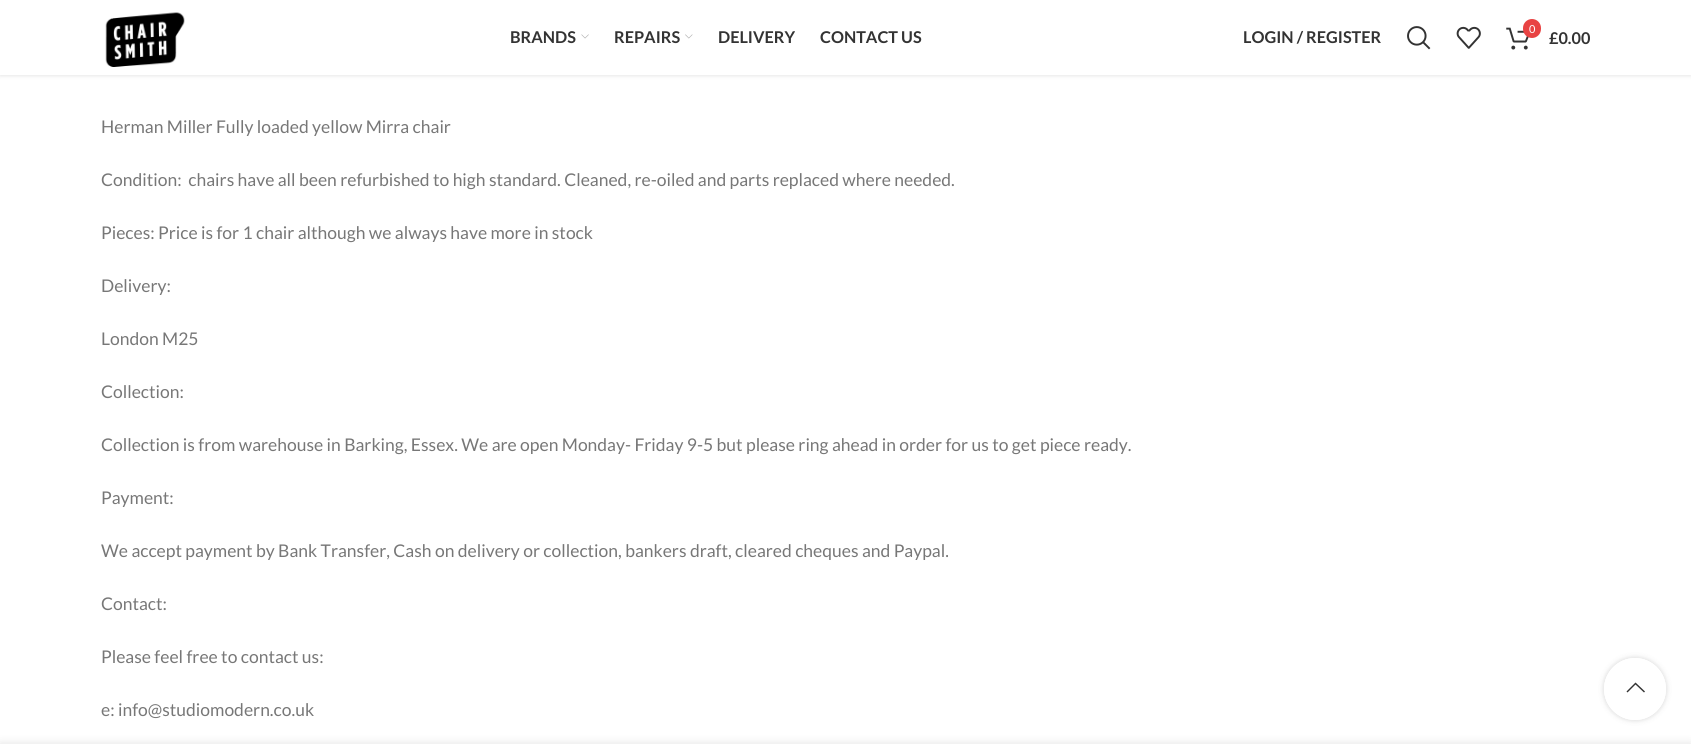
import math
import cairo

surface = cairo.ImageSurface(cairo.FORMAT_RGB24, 1691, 744)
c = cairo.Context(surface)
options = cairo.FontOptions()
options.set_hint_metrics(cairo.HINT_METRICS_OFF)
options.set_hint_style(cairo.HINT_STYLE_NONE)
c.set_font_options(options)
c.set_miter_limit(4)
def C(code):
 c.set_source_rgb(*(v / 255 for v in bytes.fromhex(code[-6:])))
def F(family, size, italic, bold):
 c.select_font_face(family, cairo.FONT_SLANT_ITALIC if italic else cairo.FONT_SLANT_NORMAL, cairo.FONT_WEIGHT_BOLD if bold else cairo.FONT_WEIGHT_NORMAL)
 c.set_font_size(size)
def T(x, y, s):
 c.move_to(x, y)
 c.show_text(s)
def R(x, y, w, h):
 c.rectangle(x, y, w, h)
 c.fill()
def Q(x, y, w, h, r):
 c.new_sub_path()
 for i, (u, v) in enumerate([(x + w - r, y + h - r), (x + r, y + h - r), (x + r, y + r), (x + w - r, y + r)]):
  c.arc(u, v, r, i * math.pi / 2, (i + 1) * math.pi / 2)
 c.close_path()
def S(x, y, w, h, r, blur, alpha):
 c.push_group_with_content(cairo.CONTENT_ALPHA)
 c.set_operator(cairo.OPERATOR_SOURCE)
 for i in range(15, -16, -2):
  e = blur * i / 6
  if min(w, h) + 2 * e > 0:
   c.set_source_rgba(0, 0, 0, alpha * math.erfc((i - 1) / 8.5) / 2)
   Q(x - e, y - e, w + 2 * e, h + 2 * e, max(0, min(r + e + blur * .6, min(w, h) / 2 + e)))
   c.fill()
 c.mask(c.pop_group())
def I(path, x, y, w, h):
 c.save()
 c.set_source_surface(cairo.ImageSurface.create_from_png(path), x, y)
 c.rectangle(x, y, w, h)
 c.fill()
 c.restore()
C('ffffff')
c.paint()
C('000000')
S(0,1,1691,75,0,2,.1)
C('ffffff')
R(0,0,1691,75)
I('1.png',105,12,80,55)
F('Lato',16.25,0,1)
C('333333')
T(510,43,'BRANDS')
I('2.png',581,34,8,5)
T(614,43,'REPAIRS')
I('3.png',685,34,8,5)
T(718,43,'DELIVERY')
T(820,43,'CONTACT US')
T(1243,43,'LOGIN / REGISTER')
I('4.png',1407,26,24,24)
I('5.png',1456,26,25,23)
I('6.png',1506,27,23,23)
C('e84343')
Q(1523,19,18,19,9)
c.fill()
F('Lato',11,0,0)
C('ffffff')
T(1529,33,'0')
F('Lato',16.25,0,1)
C('333333')
T(1549,44,'£0.00')
F('Lato',17.5,0,0)
C('777777')
T(101,133,'Herman Miller Fully loaded yellow Mirra chair')
T(101,186,'Condition:  chairs have all been refurbished to high standard. Cleaned, re-oiled and parts replaced where needed.')
T(101,239,'Pieces: Price is for 1 chair although we always have more in stock')
T(101,292,'Delivery:')
T(101,345,'London M25')
T(101,398,'Collection:')
T(101,451,'Collection is from warehouse in Barking, Essex. We are open Monday- Friday 9-5 but please ring ahead in order for us to get piece ready.')
T(101,504,'Payment:')
T(101,557,'We accept payment by Bank Transfer, Cash on delivery or collection, bankers draft, cleared cheques and Paypal.')
T(101,610,'Contact:')
T(101,663,'Please feel free to contact us:')
T(101,716,'e: info@studiomodern.co.uk')
c.save()
c.set_fill_rule(cairo.FILL_RULE_EVEN_ODD)
c.new_path()
c.move_to(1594,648)
c.line_to(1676,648)
c.line_to(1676,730)
c.line_to(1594,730)
c.close_path()
c.move_to(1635,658)
c.curve_to(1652,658,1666,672,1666,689)
c.curve_to(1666,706,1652,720,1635,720)
c.curve_to(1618,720,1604,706,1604,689)
c.curve_to(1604,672,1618,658,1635,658)
c.close_path()
c.clip()
C('000000')
S(1604,658,62,62,31,3,.17)
c.restore()
c.set_source_rgba(1,1,1,0.9)
c.arc(1635,689,31,0,2 * math.pi)
c.fill()
C('333333')
c.new_path()
c.move_to(1644,692.5)
c.line_to(1645,691.5)
c.line_to(1635.5,682.5)
c.line_to(1626.5,691.5)
c.line_to(1627.5,692.5)
c.line_to(1635.5,684.5)
c.close_path()
c.fill()
C('000000')
S(0,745,1691,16,0,5.5,.14)
surface.write_to_png('o.png')
